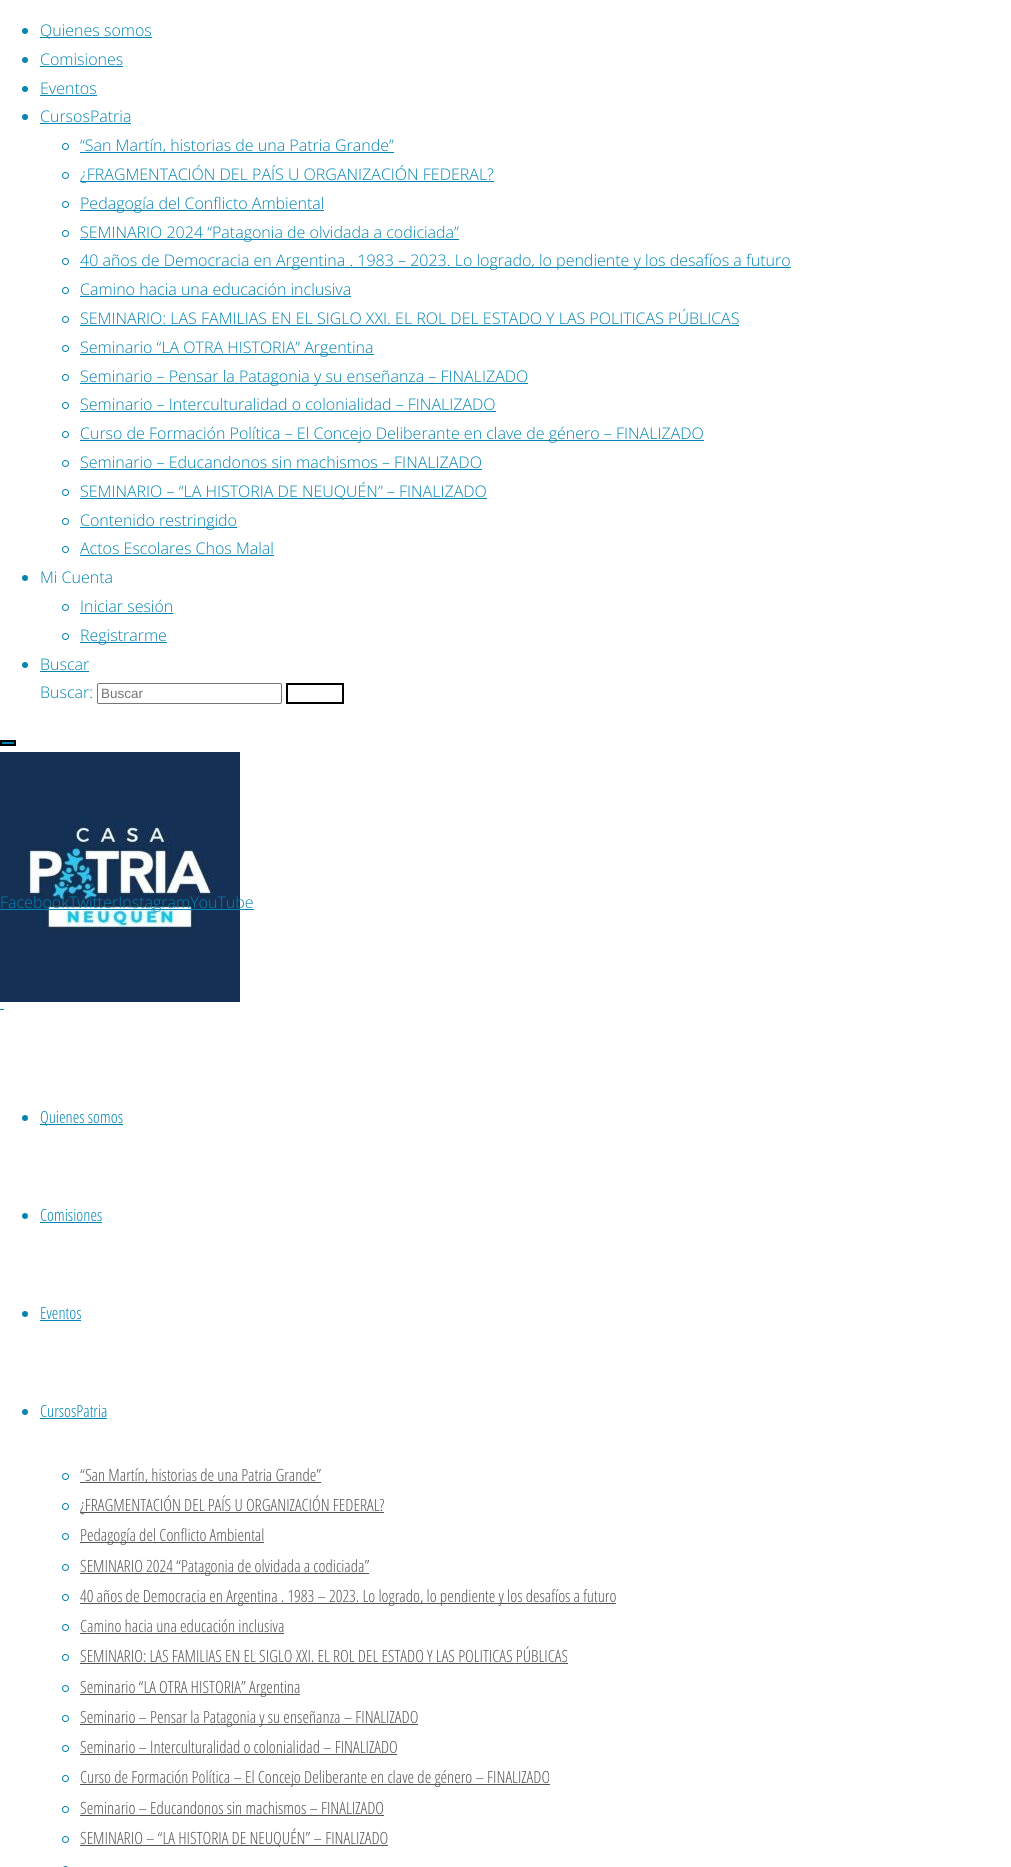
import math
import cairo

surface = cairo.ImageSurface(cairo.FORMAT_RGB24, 1011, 1867)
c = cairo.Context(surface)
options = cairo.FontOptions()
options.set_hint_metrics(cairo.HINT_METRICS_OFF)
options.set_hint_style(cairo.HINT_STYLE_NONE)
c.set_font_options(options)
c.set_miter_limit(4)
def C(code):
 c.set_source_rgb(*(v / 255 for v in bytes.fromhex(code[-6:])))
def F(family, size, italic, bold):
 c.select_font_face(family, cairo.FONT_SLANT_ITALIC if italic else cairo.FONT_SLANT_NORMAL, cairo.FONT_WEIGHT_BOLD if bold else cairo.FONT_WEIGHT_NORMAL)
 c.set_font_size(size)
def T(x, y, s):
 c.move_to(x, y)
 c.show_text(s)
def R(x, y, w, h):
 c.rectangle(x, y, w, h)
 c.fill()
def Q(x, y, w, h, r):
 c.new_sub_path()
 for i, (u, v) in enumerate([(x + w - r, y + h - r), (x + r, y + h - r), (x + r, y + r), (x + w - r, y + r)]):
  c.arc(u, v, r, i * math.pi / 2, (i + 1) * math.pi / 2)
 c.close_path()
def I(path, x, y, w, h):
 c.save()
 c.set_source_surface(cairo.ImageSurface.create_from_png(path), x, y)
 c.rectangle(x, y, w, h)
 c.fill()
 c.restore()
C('ffffff')
c.paint()
C('0085b2')
c.arc(25,31,3,0,2 * math.pi)
c.fill()
R(40,37,112,1)
F('Open Sans Light',16,0,0)
T(40,36,'Quienes somos')
c.new_path()
c.arc(25,60,3,0,2 * math.pi)
c.fill()
T(40,65,'Comisiones')
R(40,66,83,1)
c.new_path()
c.arc(25,89,3,0,2 * math.pi)
c.fill()
T(40,94,'Eventos')
R(40,95,57,1)
c.new_path()
c.arc(25,117,3,0,2 * math.pi)
c.fill()
T(40,122,'CursosPatria')
R(40,123,91,1)
c.new_path()
c.arc(65.5,146.5,3,0,2 * math.pi)
c.set_line_width(1)
c.stroke()
R(80,152,314,1)
T(80,151,'“San Martín, historias de una Patria Grande”')
c.new_path()
c.arc(65.5,175.5,3,0,2 * math.pi)
c.stroke()
R(80,181,414,1)
T(80,180,'¿FRAGMENTACIÓN DEL PAÍS U ORGANIZACIÓN FEDERAL?')
c.new_path()
c.arc(65.5,204.5,3,0,2 * math.pi)
c.stroke()
R(80,210,244,1)
T(80,209,'Pedagogía del Conflicto Ambiental')
c.new_path()
c.arc(65.5,233.5,3,0,2 * math.pi)
c.stroke()
R(80,239,379,1)
T(80,238,'SEMINARIO 2024 “Patagonia de olvidada a codiciada”')
c.new_path()
c.arc(65.5,261.5,3,0,2 * math.pi)
c.stroke()
R(80,267,711,1)
T(80,266,'40 años de Democracia en Argentina . 1983 – 2023. Lo logrado, lo pendiente y los desafíos a futuro')
c.new_path()
c.arc(65.5,290.5,3,0,2 * math.pi)
c.stroke()
T(80,295,'Camino hacia una educación inclusiva')
R(80,296,271,1)
c.new_path()
c.arc(65.5,319.5,3,0,2 * math.pi)
c.stroke()
T(80,324,'SEMINARIO: LAS FAMILIAS EN EL SIGLO XXI. EL ROL DEL ESTADO Y LAS POLITICAS PÚBLICAS')
R(80,325,659,1)
c.new_path()
c.arc(65.5,348.5,3,0,2 * math.pi)
c.stroke()
R(80,354,294,1)
T(80,353,'Seminario “LA OTRA HISTORIA” Argentina')
c.new_path()
c.arc(65.5,377.5,3,0,2 * math.pi)
c.stroke()
R(80,383,448,1)
T(80,382,'Seminario – Pensar la Patagonia y su enseñanza – FINALIZADO')
c.new_path()
c.arc(65.5,405.5,3,0,2 * math.pi)
c.stroke()
T(80,410,'Seminario – Interculturalidad o colonialidad – FINALIZADO')
R(80,411,416,1)
c.new_path()
c.arc(65.5,434.5,3,0,2 * math.pi)
c.stroke()
R(80,440,624,1)
T(80,439,'Curso de Formación Política – El Concejo Deliberante en clave de género – FINALIZADO')
c.new_path()
c.arc(65.5,463.5,3,0,2 * math.pi)
c.stroke()
T(80,468,'Seminario – Educandonos sin machismos – FINALIZADO')
R(80,469,402,1)
c.new_path()
c.arc(65.5,492.5,3,0,2 * math.pi)
c.stroke()
R(80,498,407,1)
T(80,497,'SEMINARIO – “LA HISTORIA DE NEUQUÉN” – FINALIZADO')
c.new_path()
c.arc(65.5,521.5,3,0,2 * math.pi)
c.stroke()
R(80,527,157,1)
T(80,526,'Contenido restringido')
c.new_path()
c.arc(65.5,549.5,3,0,2 * math.pi)
c.stroke()
T(80,554,'Actos Escolares Chos Malal')
R(80,555,194,1)
c.new_path()
c.arc(25,578,3,0,2 * math.pi)
c.fill()
T(40,583,'Mi Cuenta')
c.new_path()
c.arc(65.5,607.5,3,0,2 * math.pi)
c.stroke()
T(80,612,'Iniciar sesión')
R(80,613,93,1)
c.new_path()
c.arc(65.5,636.5,3,0,2 * math.pi)
c.stroke()
R(80,642,87,1)
T(80,641,'Registrarme')
c.new_path()
c.arc(25,665,3,0,2 * math.pi)
c.fill()
T(40,670,'Buscar')
R(40,671,49,1)
T(40,698,'Buscar:')
Q(97.5,683.5,184,20,1.5)
C('767676')
c.stroke()
F('Liberation Sans',13.5,0,0)
C('757575')
T(101,698,'Buscar')
c.rectangle(287,684,56,19)
C('000000')
c.set_line_width(2)
c.stroke()
C('0085b2')
c.rectangle(1,741,14,4)
c.fill_preserve()
C('000000')
c.stroke()
I('1.png',0,752,240,250)
C('0085b2')
R(0,909,254,1)
F('Open Sans Light',16,0,0)
T(0,908,'FacebookTwitterInstagramYouTube')
R(0,1009,4,1)
c.new_path()
c.arc(25,1118,3,0,2 * math.pi)
c.fill()
R(40,1124,83,1)
F('Open Sans Condensed Light',16.8,0,0)
T(40,1123,'Quienes somos')
c.new_path()
c.arc(25,1216,3,0,2 * math.pi)
c.fill()
T(40,1221,'Comisiones')
R(40,1222,62,1)
c.new_path()
c.arc(25,1314,3,0,2 * math.pi)
c.fill()
T(40,1319,'Eventos')
R(40,1320,41,1)
c.new_path()
c.arc(25,1412,3,0,2 * math.pi)
c.fill()
T(40,1417,'CursosPatria')
R(40,1418,67,1)
c.new_path()
c.arc(65.5,1476.5,3,0,2 * math.pi)
c.set_line_width(1)
c.stroke()
C('555555')
R(80,1482,241,1)
T(80,1481,'“San Martín, historias de una Patria Grande”')
c.new_path()
c.arc(65.5,1506.5,3,0,2 * math.pi)
C('0085b2')
c.stroke()
C('555555')
R(80,1512,304,1)
T(80,1511,'¿FRAGMENTACIÓN DEL PAÍS U ORGANIZACIÓN FEDERAL?')
c.new_path()
c.arc(65.5,1536.5,3,0,2 * math.pi)
C('0085b2')
c.stroke()
C('555555')
R(80,1542,184,1)
T(80,1541,'Pedagogía del Conflicto Ambiental')
c.new_path()
c.arc(65.5,1567.5,3,0,2 * math.pi)
C('0085b2')
c.stroke()
C('555555')
R(80,1573,289,1)
T(80,1572,'SEMINARIO 2024 “Patagonia de olvidada a codiciada”')
c.new_path()
c.arc(65.5,1597.5,3,0,2 * math.pi)
C('0085b2')
c.stroke()
C('555555')
R(80,1603,536,1)
T(80,1602,'40 años de Democracia en Argentina . 1983 – 2023. Lo logrado, lo pendiente y los desafíos a futuro')
c.new_path()
c.arc(65.5,1627.5,3,0,2 * math.pi)
C('0085b2')
c.stroke()
C('555555')
T(80,1632,'Camino hacia una educación inclusiva')
R(80,1633,204,1)
c.new_path()
c.arc(65.5,1657.5,3,0,2 * math.pi)
C('0085b2')
c.stroke()
C('555555')
T(80,1662,'SEMINARIO: LAS FAMILIAS EN EL SIGLO XXI. EL ROL DEL ESTADO Y LAS POLITICAS PÚBLICAS')
R(80,1663,488,1)
c.new_path()
c.arc(65.5,1688.5,3,0,2 * math.pi)
C('0085b2')
c.stroke()
C('555555')
R(80,1694,220,1)
T(80,1693,'Seminario “LA OTRA HISTORIA” Argentina')
c.new_path()
c.arc(65.5,1718.5,3,0,2 * math.pi)
C('0085b2')
c.stroke()
C('555555')
R(80,1724,338,1)
T(80,1723,'Seminario – Pensar la Patagonia y su enseñanza – FINALIZADO')
c.new_path()
c.arc(65.5,1748.5,3,0,2 * math.pi)
C('0085b2')
c.stroke()
C('555555')
T(80,1753,'Seminario – Interculturalidad o colonialidad – FINALIZADO')
R(80,1754,317,1)
c.new_path()
c.arc(65.5,1778.5,3,0,2 * math.pi)
C('0085b2')
c.stroke()
C('555555')
R(80,1784,470,1)
T(80,1783,'Curso de Formación Política – El Concejo Deliberante en clave de género – FINALIZADO')
c.new_path()
c.arc(65.5,1809.5,3,0,2 * math.pi)
C('0085b2')
c.stroke()
C('555555')
T(80,1814,'Seminario – Educandonos sin machismos – FINALIZADO')
R(80,1815,304,1)
c.new_path()
c.arc(65.5,1839.5,3,0,2 * math.pi)
C('0085b2')
c.stroke()
C('555555')
R(80,1845,308,1)
T(80,1844,'SEMINARIO – “LA HISTORIA DE NEUQUÉN” – FINALIZADO')
Q(62.5,1866.5,6,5,3)
C('0085b2')
c.stroke()
surface.write_to_png('o.png')
